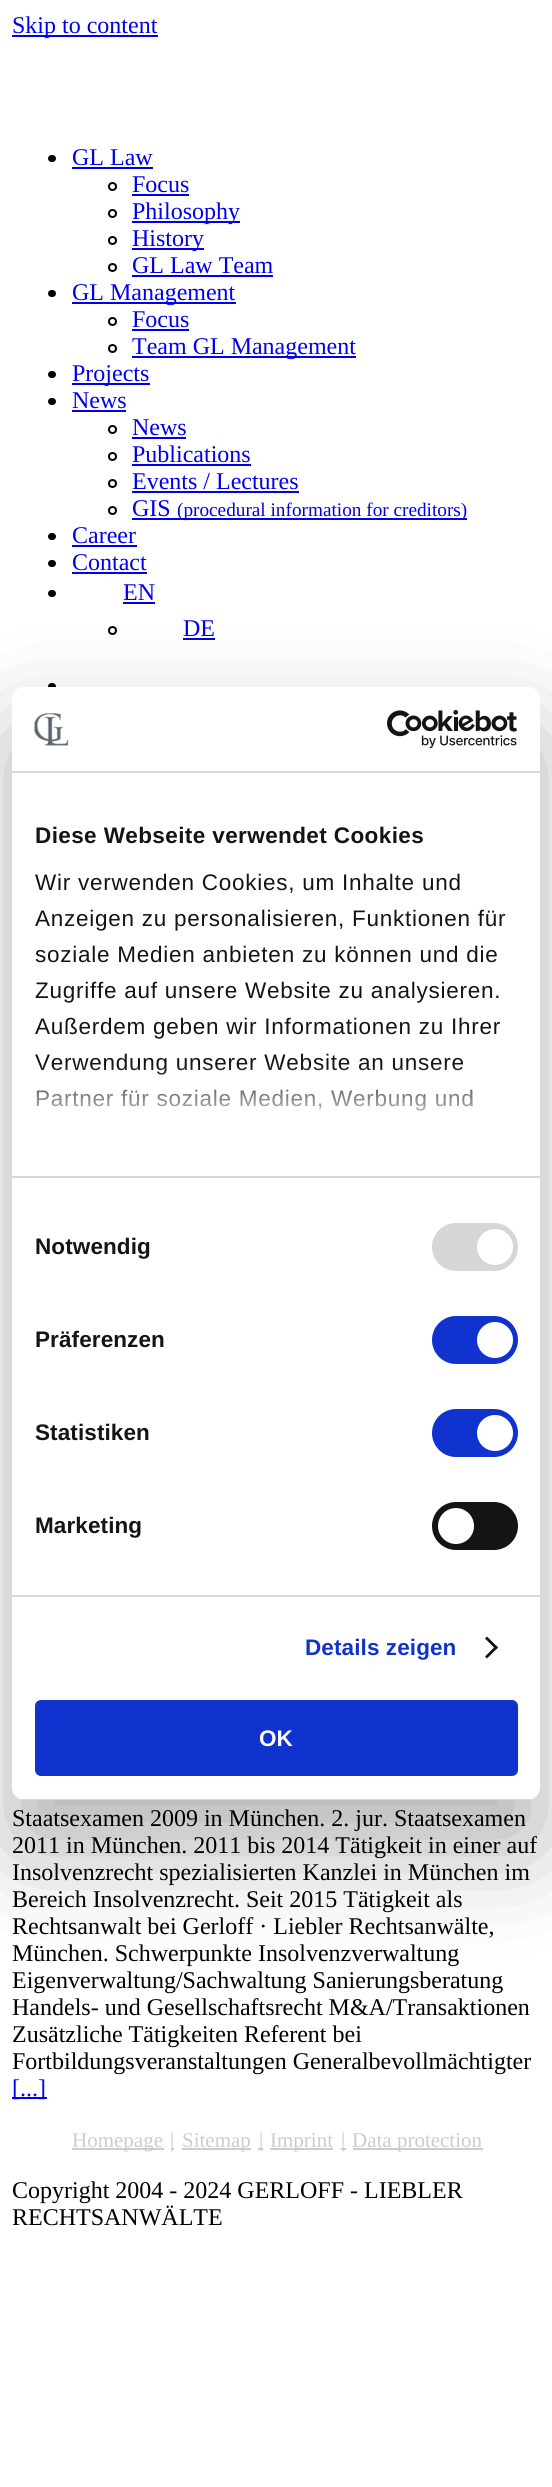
import math
import cairo

surface = cairo.ImageSurface(cairo.FORMAT_RGB24, 552, 2487)
c = cairo.Context(surface)
options = cairo.FontOptions()
options.set_hint_metrics(cairo.HINT_METRICS_OFF)
options.set_hint_style(cairo.HINT_STYLE_NONE)
c.set_font_options(options)
c.set_miter_limit(4)
def C(code):
 c.set_source_rgb(*(v / 255 for v in bytes.fromhex(code[-6:])))
def F(family, size, italic, bold):
 c.select_font_face(family, cairo.FONT_SLANT_ITALIC if italic else cairo.FONT_SLANT_NORMAL, cairo.FONT_WEIGHT_BOLD if bold else cairo.FONT_WEIGHT_NORMAL)
 c.set_font_size(size)
def T(x, y, s):
 c.move_to(x, y)
 c.show_text(s)
def L(x, y, s, letter, word):
 c.move_to(x, y)
 for ch in s:
  c.show_text(ch)
  c.rel_move_to(letter + word * (ch == ' '), 0)
def R(x, y, w, h):
 c.rectangle(x, y, w, h)
 c.fill()
def Q(x, y, w, h, r):
 c.new_sub_path()
 for i, (u, v) in enumerate([(x + w - r, y + h - r), (x + r, y + h - r), (x + r, y + r), (x + w - r, y + r)]):
  c.arc(u, v, r, i * math.pi / 2, (i + 1) * math.pi / 2)
 c.close_path()
def S(x, y, w, h, r, blur, alpha):
 c.push_group_with_content(cairo.CONTENT_ALPHA)
 c.set_operator(cairo.OPERATOR_SOURCE)
 for i in range(15, -16, -2):
  e = blur * i / 6
  if min(w, h) + 2 * e > 0:
   c.set_source_rgba(0, 0, 0, alpha * math.erfc((i - 1) / 8.5) / 2)
   Q(x - e, y - e, w + 2 * e, h + 2 * e, max(0, min(r + e + blur * .6, min(w, h) / 2 + e)))
   c.fill()
 c.mask(c.pop_group())
def I(path, x, y, w, h):
 c.save()
 c.set_source_surface(cairo.ImageSurface.create_from_png(path), x, y)
 c.rectangle(x, y, w, h)
 c.fill()
 c.restore()
C('ffffff')
c.paint()
C('0000ee')
R(12,35,146,2)
F('Liberation Serif',24,0,0)
T(12,33,'Skip to content')
C('000000')
Q(48,155,8,7,3.5)
c.fill()
C('0000ee')
T(72,165,'GL Law')
R(72,167,81,2)
c.new_path()
c.arc(112.5,186.5,3.5,0,2 * math.pi)
C('000000')
c.stroke()
C('0000ee')
T(132,192,'Focus')
R(132,194,57,2)
c.new_path()
c.arc(112.5,213.5,3.5,0,2 * math.pi)
C('000000')
c.stroke()
C('0000ee')
R(132,221,108,2)
T(132,219,'Philosophy')
c.new_path()
c.arc(112.5,240.5,3.5,0,2 * math.pi)
C('000000')
c.stroke()
C('0000ee')
R(132,248,72,2)
T(132,246,'History')
c.new_path()
c.arc(112.5,267.5,3.5,0,2 * math.pi)
C('000000')
c.stroke()
C('0000ee')
T(132,273,'GL Law Team')
R(132,275,141,2)
C('000000')
Q(48,290,8,7,3.5)
c.fill()
C('0000ee')
R(72,302,164,2)
T(72,300,'GL Management')
c.new_path()
c.arc(112.5,321.5,3.5,0,2 * math.pi)
C('000000')
c.stroke()
C('0000ee')
T(132,327,'Focus')
R(132,329,57,2)
c.new_path()
c.arc(112.5,348.5,3.5,0,2 * math.pi)
C('000000')
c.stroke()
C('0000ee')
R(132,356,224,2)
T(132,354,'Team GL Management')
C('000000')
Q(48,371,8,7,3.5)
c.fill()
C('0000ee')
R(72,383,78,2)
T(72,381,'Projects')
C('000000')
Q(48,398,8,7,3.5)
c.fill()
C('0000ee')
T(72,408,'News')
R(72,410,54,2)
c.new_path()
c.arc(112.5,429.5,3.5,0,2 * math.pi)
C('000000')
c.stroke()
C('0000ee')
T(132,435,'News')
R(132,437,54,2)
c.new_path()
c.arc(112.5,456.5,3.5,0,2 * math.pi)
C('000000')
c.stroke()
C('0000ee')
T(132,462,'Publications')
R(132,464,119,2)
c.new_path()
c.arc(112.5,483.5,3.5,0,2 * math.pi)
C('000000')
c.stroke()
C('0000ee')
T(132,489,'Events / Lectures')
R(132,491,167,2)
c.new_path()
c.arc(112.5,510.5,3.5,0,2 * math.pi)
C('000000')
c.stroke()
C('0000ee')
T(132,516,'GIS')
R(132,518,335,2)
F('Liberation Serif',19.25,0,0)
T(177,516,'(procedural information for creditors)')
C('000000')
Q(48,533,8,7,3.5)
c.fill()
F('Liberation Serif',24,0,0)
C('0000ee')
T(72,543,'Career')
R(72,545,65,2)
C('000000')
Q(48,560,8,7,3.5)
c.fill()
C('0000ee')
T(72,570,'Contact')
R(72,572,75,2)
C('000000')
Q(48,590,8,7,3.5)
c.fill()
C('0000ee')
T(123,600,'EN')
R(123,602,32,2)
c.new_path()
c.arc(112.5,630.5,3.5,0,2 * math.pi)
C('000000')
c.stroke()
C('0000ee')
T(183,636,'DE')
R(183,638,32,2)
C('000000')
Q(48,683,8,7,3.5)
c.fill()
T(12,1826,'Staatsexamen 2009 in München. 2. jur. Staatsexamen')
T(12,1853,'2011 in München. 2011 bis 2014 Tätigkeit in einer auf')
T(12,1880,'Insolvenzrecht spezialisierten Kanzlei in München im')
T(12,1907,'Bereich Insolvenzrecht. Seit 2015 Tätigkeit als')
T(12,1934,'Rechtsanwalt bei Gerloff · Liebler Rechtsanwälte,')
T(12,1961,'München. Schwerpunkte Insolvenzverwaltung')
T(12,1988,'Eigenverwaltung/Sachwaltung Sanierungsberatung')
T(12,2015,'Handels- und Gesellschaftsrecht M&A/Transaktionen')
T(12,2042,'Zusätzliche Tätigkeiten Referent bei')
T(12,2069,'Fortbildungsveranstaltungen Generalbevollmächtigter')
C('0000ee')
R(12,2097,35,2)
T(12,2096,'[...]')
C('cccccc')
R(72,2148,92,2)
F('Liberation Serif',21,0,0)
T(72,2147,'Homepage')
R(171,2148,3,2)
T(170,2147,'|')
R(182,2148,69,2)
T(182,2147,'Sitemap')
R(258,2148,5,2)
T(259,2147,'|')
R(270,2148,63,2)
T(270,2147,'Imprint')
R(341,2148,5,2)
T(341,2147,'|')
R(353,2148,130,2)
T(352,2147,'Data protection')
F('Liberation Serif',24,0,0)
C('000000')
T(12,2198,'Copyright 2004 - 2024 GERLOFF - LIEBLER')
T(12,2225,'RECHTSANWÄLTE')
C('000000')
S(12,735,528,1113,12,51,.3)
C('ffffff')
Q(12,687,528,1113,12)
c.fill()
C('d6d6d6')
R(12,771,528,2)
I('1.png',34,713,35,33)
I('2.png',387,710,130,38)
R(12,1176,528,2)
F('Liberation Sans',22.5,0,1)
C('141414')
L(35,843,'Diese Webseite verwendet Cookies',.4,0)
F('Liberation Sans',22.5,0,0)
L(35,890,'Wir verwenden Cookies, um Inhalte und',.75,0)
L(35,926,'Anzeigen zu personalisieren, Funktionen für',.75,0)
L(35,962,'soziale Medien anbieten zu können und die',.75,0)
L(35,998,'Zugriffe auf unsere Website zu analysieren.',.75,0)
L(35,1034,'Außerdem geben wir Informationen zu Ihrer',.75,0)
L(35,1070,'Verwendung unserer Website an unsere',.75,0)
L(35,1106,'Partner für soziale Medien, Werbung und',.75,0)
gradient = cairo.LinearGradient(266,1176,266,1064)
gradient.add_color_stop_rgba(0,1,1,1,1)
gradient.add_color_stop_rgba(.5,1,1,1,.8)
gradient.add_color_stop_rgba(1,1,1,1,0)
c.set_source(gradient)
R(36,1066,436,45)
C('d6d6d6')
R(12,1595,528,2)
F('Liberation Sans',22.5,0,1)
C('141414')
L(35,1254,'Notwendig',.1,0)
C('d6d6d6')
Q(432,1223,86,48,24)
c.fill()
C('ffffff')
c.arc(495,1247,18,0,2 * math.pi)
c.fill()
C('141414')
L(35,1347,'Präferenzen',.1,0)
C('1032cf')
Q(432,1316,86,48,24)
c.fill()
C('ffffff')
c.arc(495,1340,18,0,2 * math.pi)
c.fill()
C('141414')
L(35,1440,'Statistiken',.1,0)
C('1032cf')
Q(432,1409,86,48,24)
c.fill()
C('ffffff')
c.arc(495,1433,18,0,2 * math.pi)
c.fill()
C('141414')
L(35,1533,'Marketing',.1,0)
Q(432,1502,86,48,24)
c.fill()
C('ffffff')
c.arc(456,1526,18,0,2 * math.pi)
c.fill()
C('1032cf')
L(305,1655,'Details zeigen',.1,0)
C('141414')
c.new_path()
c.move_to(487,1636.5)
c.line_to(498,1647.5)
c.line_to(496,1649.5)
c.line_to(485,1638.5)
c.close_path()
c.fill()
c.new_path()
c.move_to(496,1645.5)
c.line_to(498,1647.5)
c.line_to(487,1658.5)
c.line_to(485,1656.5)
c.close_path()
c.fill()
c.save()
Q(12,687,528,1113,12)
c.clip()
C('d6d6d6')
R(12,1799,528,1)
c.restore()
C('1032cf')
Q(36.5,1701.5,480,73,4.5)
c.fill_preserve()
c.set_line_width(3)
c.stroke()
C('ffffff')
T(259,1746,'OK')
surface.write_to_png('o.png')
